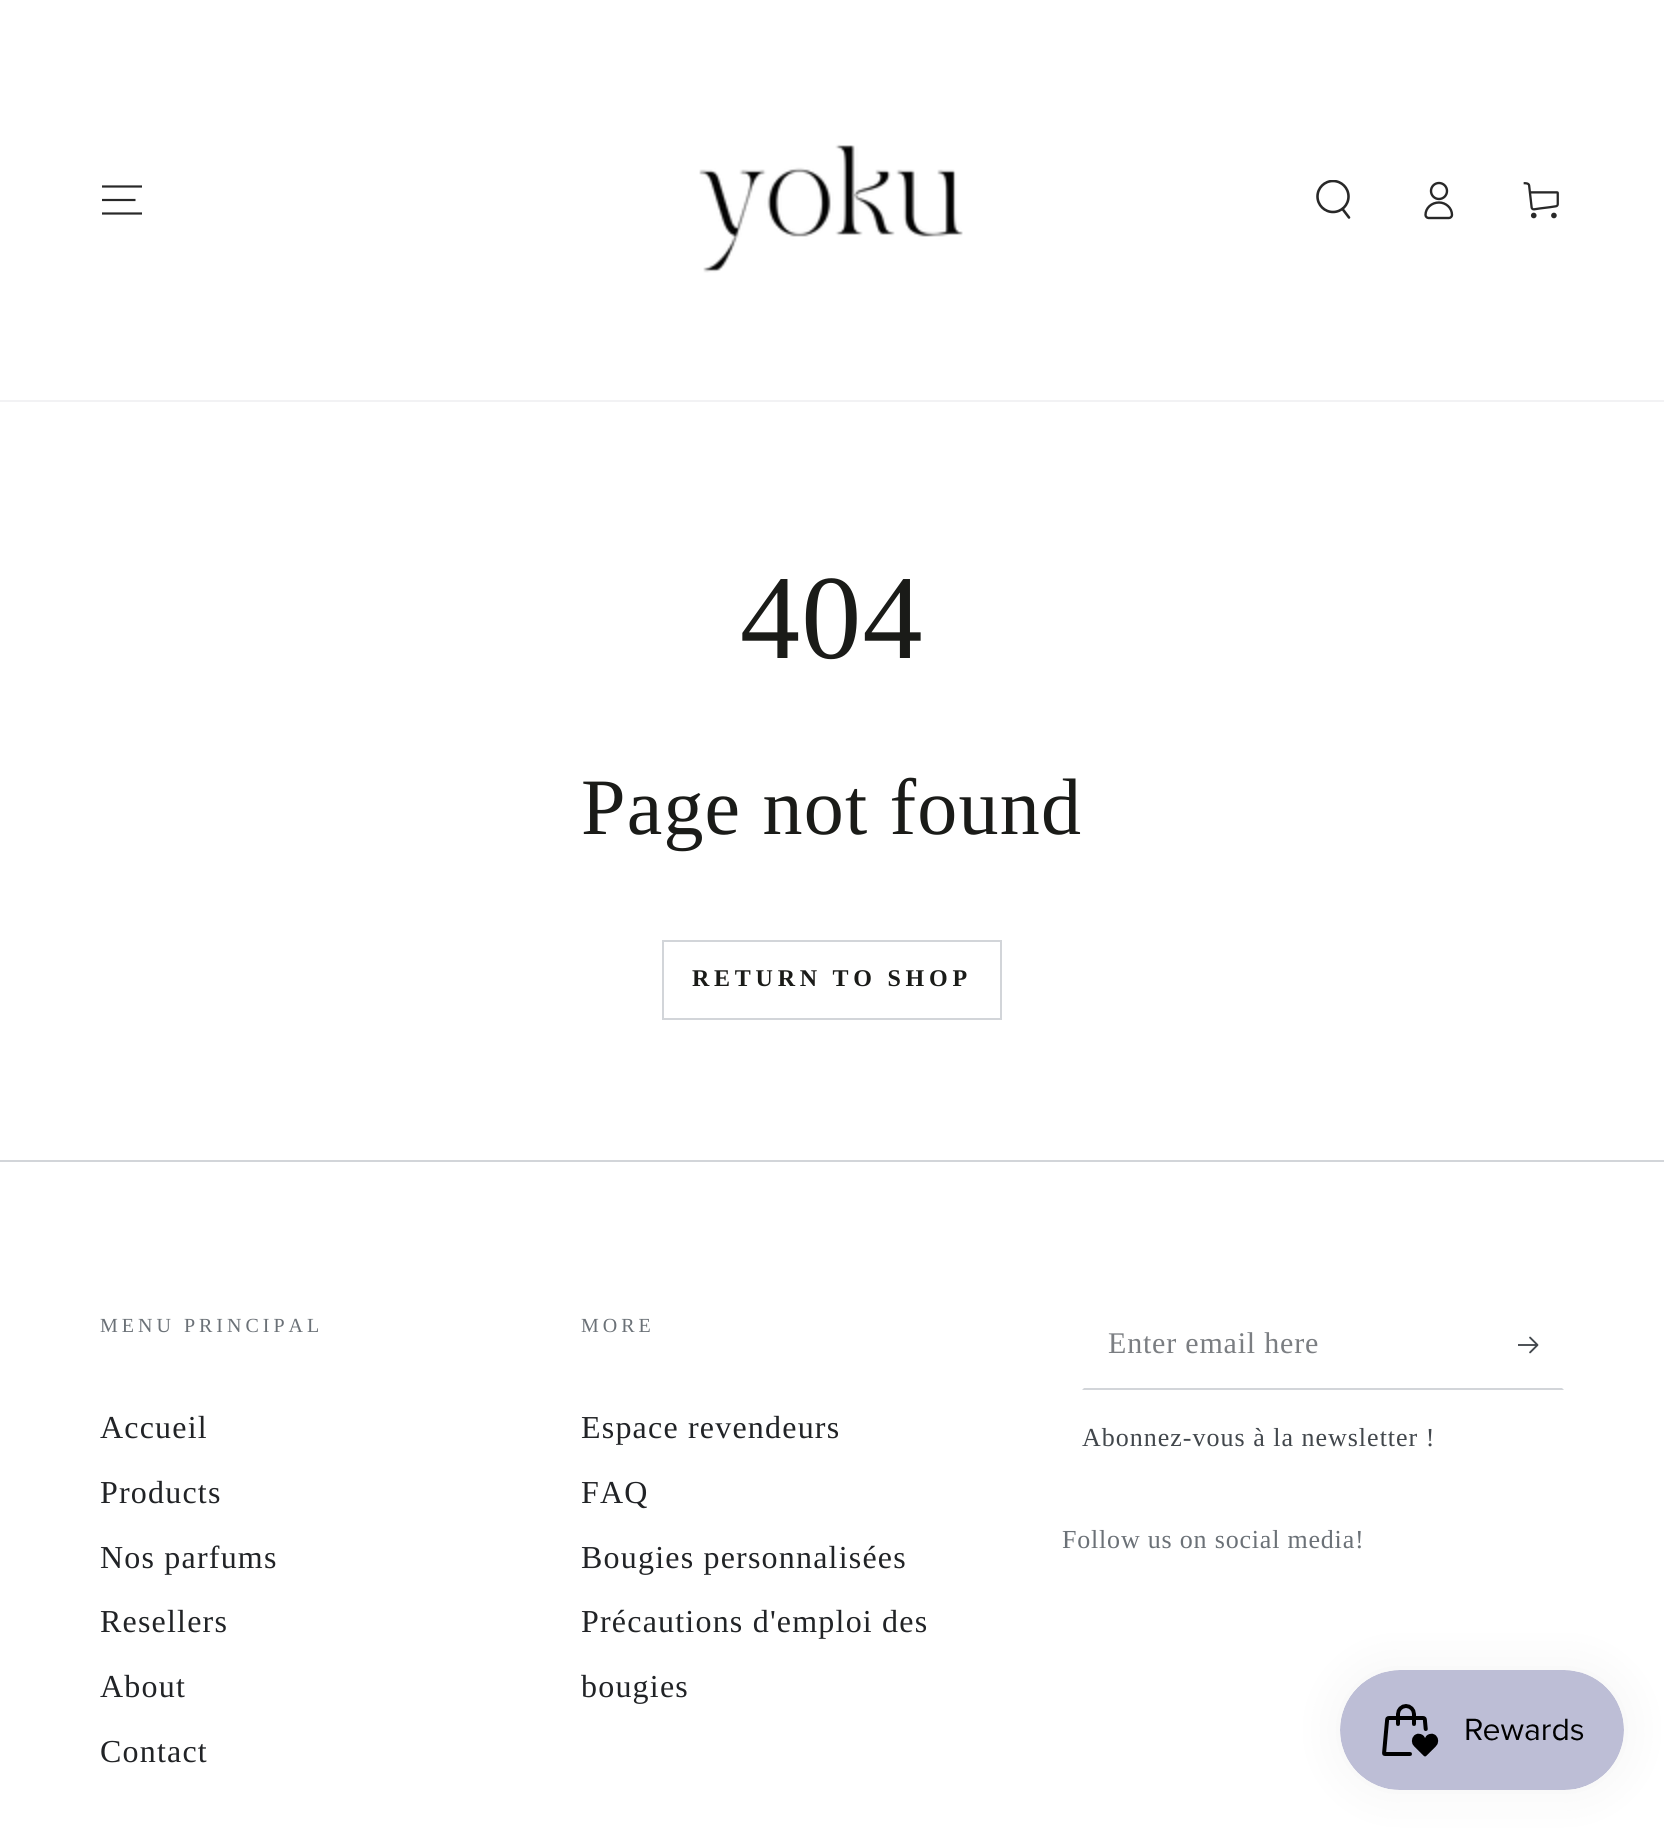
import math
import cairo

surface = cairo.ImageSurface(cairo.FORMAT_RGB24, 1664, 1829)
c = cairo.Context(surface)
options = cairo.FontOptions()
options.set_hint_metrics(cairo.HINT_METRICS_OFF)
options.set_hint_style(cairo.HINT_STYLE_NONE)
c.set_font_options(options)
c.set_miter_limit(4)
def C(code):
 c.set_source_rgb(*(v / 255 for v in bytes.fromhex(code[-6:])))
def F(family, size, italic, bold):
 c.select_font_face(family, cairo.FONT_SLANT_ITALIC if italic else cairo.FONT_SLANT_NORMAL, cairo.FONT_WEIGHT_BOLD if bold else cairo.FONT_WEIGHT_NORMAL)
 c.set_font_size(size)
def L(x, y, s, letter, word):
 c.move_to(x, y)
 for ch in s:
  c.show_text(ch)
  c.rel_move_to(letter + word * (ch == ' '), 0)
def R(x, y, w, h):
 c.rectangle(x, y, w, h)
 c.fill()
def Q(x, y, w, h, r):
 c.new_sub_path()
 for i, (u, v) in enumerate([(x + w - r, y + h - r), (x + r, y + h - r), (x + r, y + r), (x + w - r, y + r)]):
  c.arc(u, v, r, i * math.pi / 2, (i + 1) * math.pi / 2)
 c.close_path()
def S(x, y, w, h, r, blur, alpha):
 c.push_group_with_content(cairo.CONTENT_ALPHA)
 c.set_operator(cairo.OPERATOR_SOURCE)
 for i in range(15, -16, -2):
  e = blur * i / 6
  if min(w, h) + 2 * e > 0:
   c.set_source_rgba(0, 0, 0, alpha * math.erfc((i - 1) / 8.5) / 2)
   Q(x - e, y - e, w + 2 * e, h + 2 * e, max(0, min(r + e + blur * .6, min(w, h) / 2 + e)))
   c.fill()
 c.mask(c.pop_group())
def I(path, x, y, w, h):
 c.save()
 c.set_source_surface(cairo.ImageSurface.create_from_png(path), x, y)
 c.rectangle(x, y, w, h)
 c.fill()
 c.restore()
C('ffffff')
c.paint()
C('f2f2f4')
R(0,400,1664,2)
c.new_path()
c.move_to(102,213.5)
c.line_to(142,213.5)
c.move_to(102,200)
c.line_to(135.5,200)
c.move_to(102,186.5)
c.line_to(142,186.5)
C('282828')
c.set_line_width(2.2)
c.stroke()
I('1.png',699,144,264,129)
c.save()
c.rectangle(1314,180,40,40)
c.clip()
c.arc(1333,196.5,15.5,0,2 * math.pi)
c.set_line_width(2.6)
c.stroke()
c.restore()
c.new_path()
c.move_to(1342.5,209)
c.line_to(1349,217.5)
c.set_line_width(2.6)
c.set_line_cap(cairo.LINE_CAP_ROUND)
c.stroke()
c.new_path()
c.move_to(1439,202.5)
c.curve_to(1431.5,202.5,1425.5,208,1425.5,215)
c.curve_to(1425.5,216.5,1427,218,1428.5,218)
c.line_to(1449,218)
c.curve_to(1450.5,218,1452,216.5,1452,215)
c.curve_to(1452,208,1446,202.5,1439,202.5)
c.close_path()
c.set_line_width(2.4)
c.set_line_cap(cairo.LINE_CAP_BUTT)
c.stroke()
c.arc(1439,191,8,0,2 * math.pi)
c.stroke()
I('2.png',1523,182,36,37)
F('Liberation Serif',120,0,0)
C('1a1b18')
L(740,658,'404',1.2,0)
F('Liberation Serif',80,0,0)
L(581,834,'Page not found',1.2,0)
c.rectangle(663,941,338,78)
C('d2d5d9')
c.set_line_width(2)
c.stroke()
F('Liberation Serif',24,0,1)
C('1a1b18')
L(692,986,'RETURN TO SHOP',4.75,0)
C('d2d5d9')
R(0,1160,1664,2)
F('Liberation Serif',20,0,0)
C('6b7177')
L(100,1332,'MENU PRINCIPAL',4,0)
F('Liberation Serif',32,0,0)
C('212326')
L(100,1438,'Accueil',1.2,0)
L(100,1503,'Products',1.2,0)
L(100,1568,'Nos parfums',1.2,0)
L(100,1632,'Resellers',1.2,0)
L(100,1697,'About',1.2,0)
L(100,1762,'Contact',1.2,0)
F('Liberation Serif',20,0,0)
C('6b7177')
L(581,1332,'MORE',4,0)
F('Liberation Serif',32,0,0)
C('212326')
L(581,1438,'Espace revendeurs',1.2,0)
L(581,1503,'FAQ',1.2,0)
L(581,1568,'Bougies personnalisées',1.2,0)
L(581,1632,'Précautions d\'emploi des',1.2,0)
L(581,1697,'bougies',1.2,0)
C('d2d5d9')
c.new_path()
c.move_to(1564,1390)
c.line_to(1082,1390)
c.line_to(1084,1388)
c.line_to(1562,1388)
c.close_path()
c.fill()
F('Liberation Serif',30,0,0)
C('7b7e82')
L(1108,1353,'Enter email here',.8,0)
I('3.png',1518,1336,21,18)
F('Liberation Serif',26,0,0)
C('42474c')
L(1082,1446,'Abonnez-vous à la newsletter !',1,0)
C('6b7177')
L(1062,1548,'Follow us on social media!',.8,0)
C('000000')
S(1340,1670,284,120,60,25,.05)
I('4.png',1340,1670,284,120)
surface.write_to_png('o.png')
